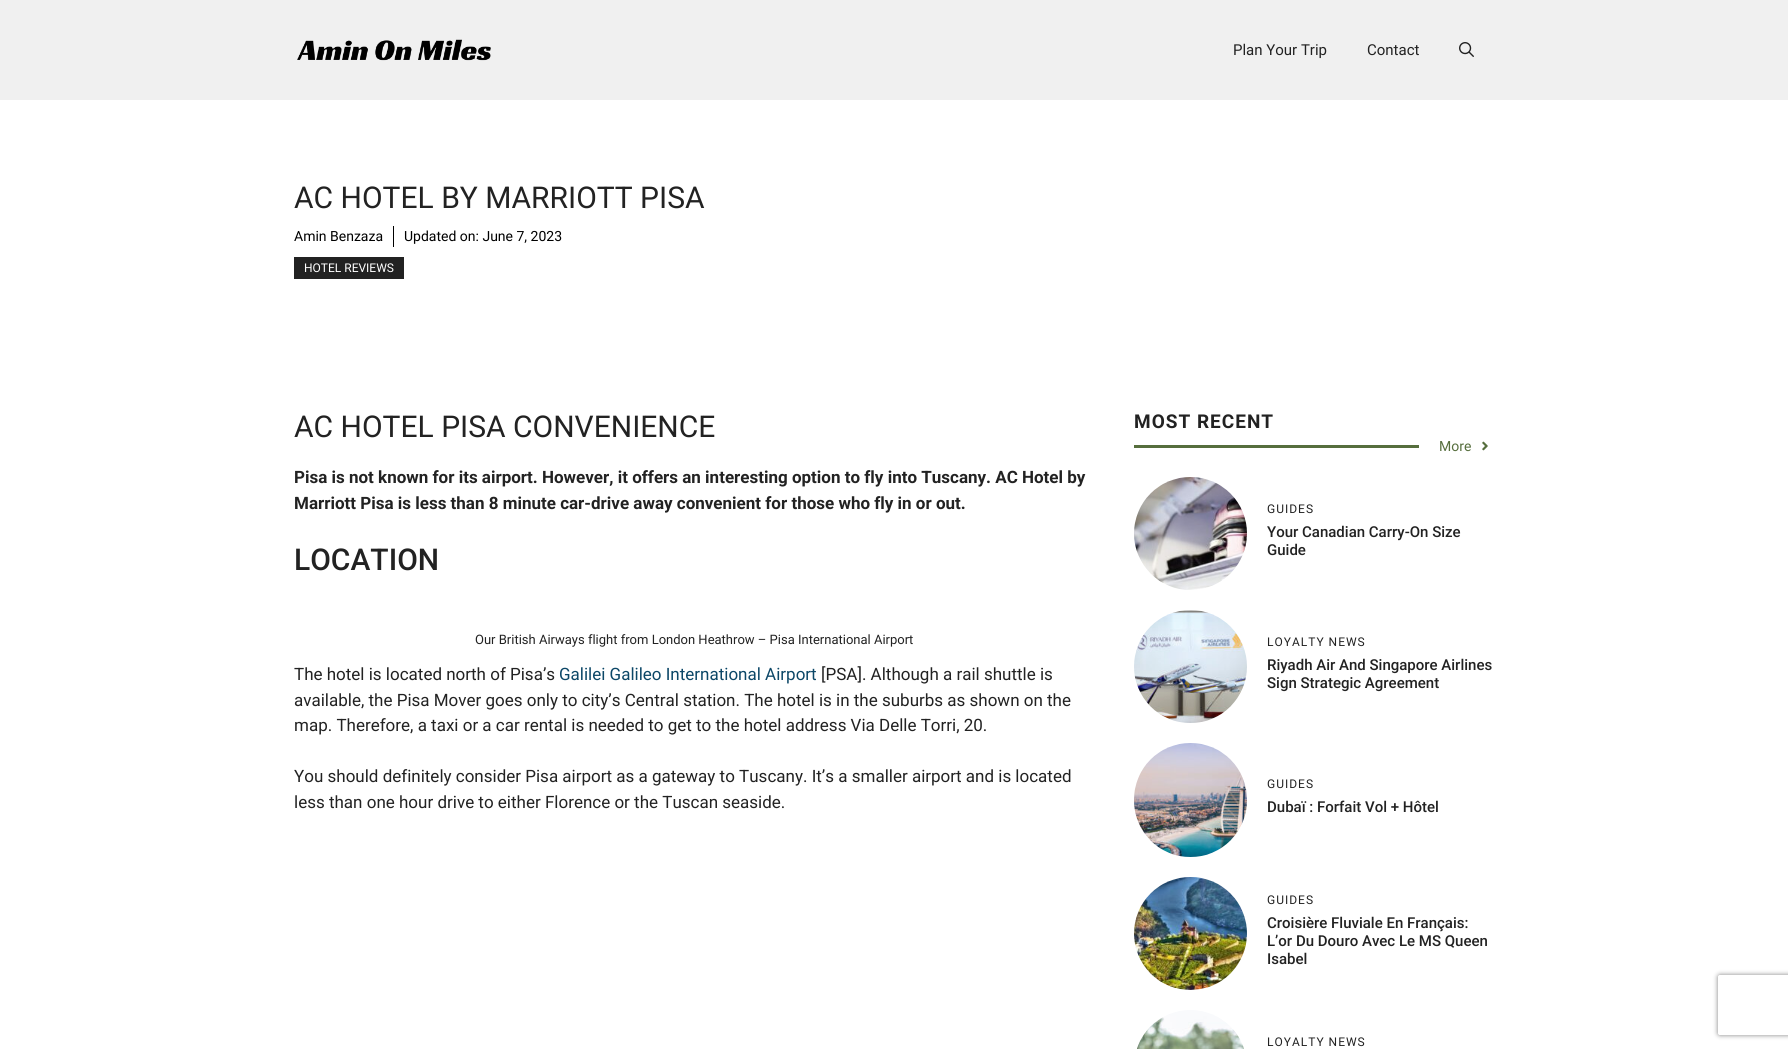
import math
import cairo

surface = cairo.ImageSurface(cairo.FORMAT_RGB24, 1788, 1049)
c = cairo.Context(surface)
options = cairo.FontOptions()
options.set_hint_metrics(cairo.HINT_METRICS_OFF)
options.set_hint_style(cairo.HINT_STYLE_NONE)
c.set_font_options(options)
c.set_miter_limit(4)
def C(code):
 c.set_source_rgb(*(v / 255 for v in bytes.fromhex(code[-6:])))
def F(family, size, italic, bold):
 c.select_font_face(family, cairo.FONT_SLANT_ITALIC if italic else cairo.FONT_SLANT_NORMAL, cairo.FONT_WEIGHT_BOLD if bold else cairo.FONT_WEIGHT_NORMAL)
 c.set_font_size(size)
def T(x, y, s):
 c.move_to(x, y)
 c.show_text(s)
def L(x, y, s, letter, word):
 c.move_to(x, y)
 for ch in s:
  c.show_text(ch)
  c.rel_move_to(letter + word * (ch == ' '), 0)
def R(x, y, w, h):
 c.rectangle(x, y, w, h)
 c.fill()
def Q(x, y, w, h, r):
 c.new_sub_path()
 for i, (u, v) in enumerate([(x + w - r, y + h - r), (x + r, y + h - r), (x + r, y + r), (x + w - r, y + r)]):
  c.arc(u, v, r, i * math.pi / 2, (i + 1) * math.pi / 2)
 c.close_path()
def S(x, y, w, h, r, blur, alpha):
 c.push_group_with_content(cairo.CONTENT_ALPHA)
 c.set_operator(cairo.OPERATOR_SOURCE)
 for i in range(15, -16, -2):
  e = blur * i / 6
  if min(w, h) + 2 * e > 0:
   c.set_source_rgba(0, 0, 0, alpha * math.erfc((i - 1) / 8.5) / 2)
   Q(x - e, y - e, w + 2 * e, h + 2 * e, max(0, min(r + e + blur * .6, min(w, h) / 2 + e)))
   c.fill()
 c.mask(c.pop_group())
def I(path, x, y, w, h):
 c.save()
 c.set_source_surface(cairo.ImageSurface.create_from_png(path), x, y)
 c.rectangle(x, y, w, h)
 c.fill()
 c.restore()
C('ffffff')
c.paint()
C('f0f0f0')
R(0,0,1788,100)
I('1.png',297,39,194,22)
F('Roboto',15,0,0)
C('222222')
T(1233,55,'Plan Your Trip')
T(1367,55,'Contact')
I('2.png',1459,42,15,15)
F('Roboto',30,0,0)
T(294,208,'AC HOTEL BY MARRIOTT PISA')
C('000000')
R(393,226,1,21)
F('Roboto',14,0,0)
T(294,241,'Amin Benzaza')
T(404,241,'Updated on: June 7, 2023')
C('222222')
R(294,257,110,22)
F('Roboto',12,0,0)
C('ffffff')
T(304,272,'HOTEL REVIEWS')
F('Roboto',30,0,0)
C('222222')
T(294,437,'AC HOTEL PISA CONVENIENCE')
F('Roboto',17,0,1)
T(294,483,'Pisa is not known for its airport. However, it offers an interesting option to fly into Tuscany. AC Hotel by')
T(294,509,'Marriott Pisa is less than 8 minute car-drive away convenient for those who fly in or out.')
F('Roboto Medium',30,0,0)
T(294,570,'LOCATION')
F('Roboto',13,0,0)
T(475,644,'Our British Airways flight from London Heathrow – Pisa International Airport')
F('Roboto',17,0,0)
T(294,680,'The hotel is located north of Pisa’s')
C('0c4767')
T(559,680,'Galilei Galileo International Airport')
C('222222')
T(821,680,'[PSA]. Although a rail shuttle is')
T(294,706,'available, the Pisa Mover goes only to city’s Central station. The hotel is in the suburbs as shown on the')
T(294,731,'map. Therefore, a taxi or a car rental is needed to get to the hotel address Via Delle Torri, 20.')
T(294,782,'You should definitely consider Pisa airport as a gateway to Tuscany. It’s a smaller airport and is located')
T(294,808,'less than one hour drive to either Florence or the Tuscan seaside.')
F('Roboto',19,0,1)
L(1134,428,'MOST RECENT',1,0)
C('566e3d')
R(1134,445,285,3)
F('Roboto',14,0,0)
T(1439,451,'More')
I('3.png',1482,441,6,10)
I('4.png',1134,477,113,113)
F('Roboto',12,0,0)
C('222222')
L(1267,513,'GUIDES',1,0)
F('Roboto Medium',15,0,0)
T(1267,537,'Your Canadian Carry-On Size')
T(1267,555,'Guide')
I('5.png',1134,610,113,113)
F('Roboto',12,0,0)
L(1267,646,'LOYALTY NEWS',1,0)
F('Roboto Medium',15,0,0)
T(1267,670,'Riyadh Air And Singapore Airlines')
T(1267,688,'Sign Strategic Agreement')
I('6.png',1134,743,113,114)
F('Roboto',12,0,0)
L(1267,788,'GUIDES',1,0)
F('Roboto Medium',15,0,0)
T(1267,812,'Dubaï : Forfait Vol + Hôtel')
I('7.png',1134,877,113,113)
F('Roboto',12,0,0)
L(1267,904,'GUIDES',1,0)
F('Roboto Medium',15,0,0)
T(1267,928,'Croisière Fluviale En Français:')
T(1267,946,'L’or Du Douro Avec Le MS Queen')
T(1267,964,'Isabel')
I('8.png',1137,1010,107,39)
F('Roboto',12,0,0)
L(1267,1046,'LOYALTY NEWS',1,0)
c.save()
c.set_fill_rule(cairo.FILL_RULE_EVEN_ODD)
c.new_path()
c.move_to(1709,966)
c.line_to(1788,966)
c.line_to(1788,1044)
c.line_to(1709,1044)
c.close_path()
c.move_to(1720,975)
c.line_to(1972,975)
c.curve_to(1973,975,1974,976,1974,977)
c.line_to(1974,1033)
c.curve_to(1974,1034,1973,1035,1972,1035)
c.line_to(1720,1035)
c.curve_to(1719,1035,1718,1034,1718,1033)
c.line_to(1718,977)
c.curve_to(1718,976,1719,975,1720,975)
c.close_path()
c.clip()
C('808080')
S(1718,975,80,60,2,2.5,1)
c.restore()
surface.write_to_png('o.png')
